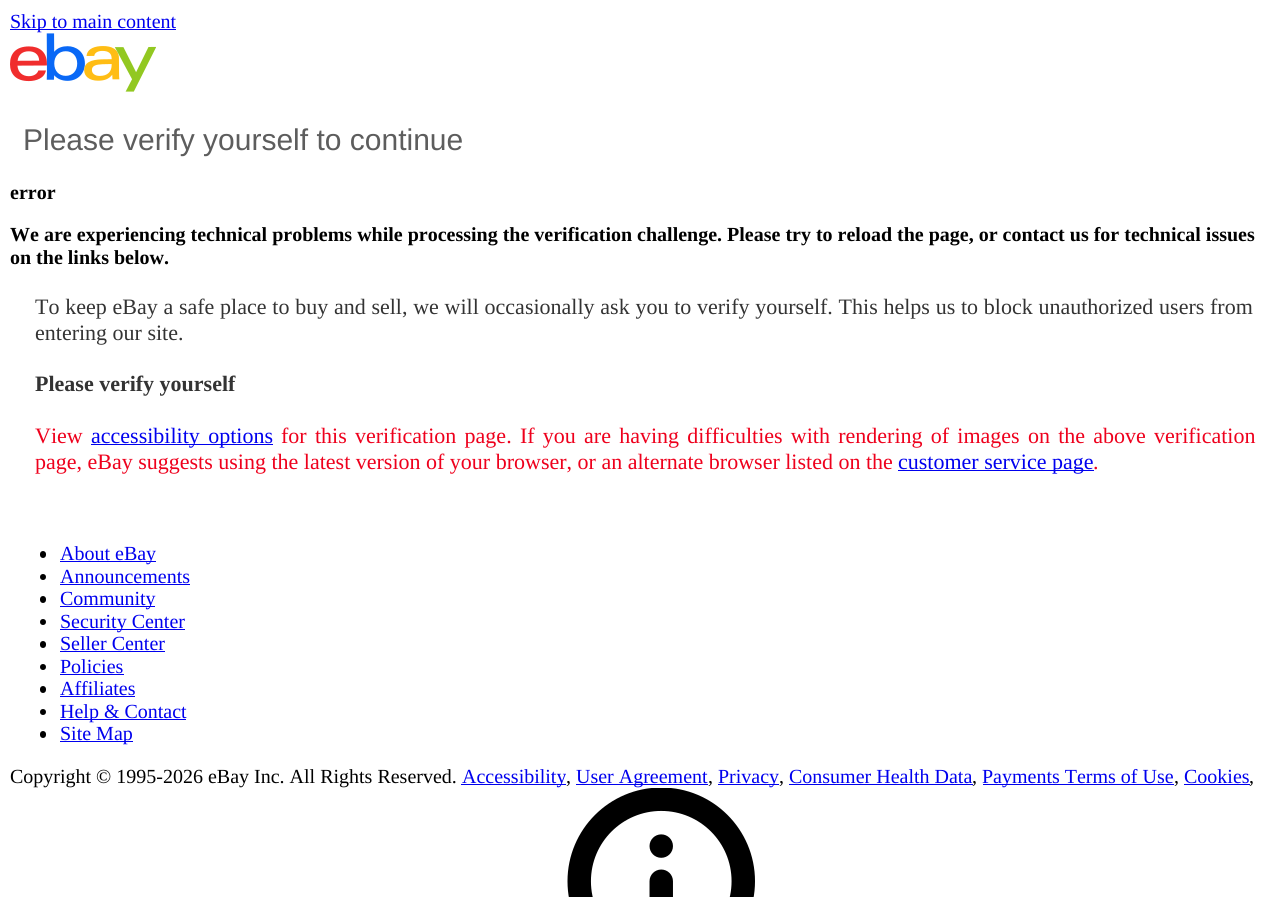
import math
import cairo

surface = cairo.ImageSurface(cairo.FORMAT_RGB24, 1288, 897)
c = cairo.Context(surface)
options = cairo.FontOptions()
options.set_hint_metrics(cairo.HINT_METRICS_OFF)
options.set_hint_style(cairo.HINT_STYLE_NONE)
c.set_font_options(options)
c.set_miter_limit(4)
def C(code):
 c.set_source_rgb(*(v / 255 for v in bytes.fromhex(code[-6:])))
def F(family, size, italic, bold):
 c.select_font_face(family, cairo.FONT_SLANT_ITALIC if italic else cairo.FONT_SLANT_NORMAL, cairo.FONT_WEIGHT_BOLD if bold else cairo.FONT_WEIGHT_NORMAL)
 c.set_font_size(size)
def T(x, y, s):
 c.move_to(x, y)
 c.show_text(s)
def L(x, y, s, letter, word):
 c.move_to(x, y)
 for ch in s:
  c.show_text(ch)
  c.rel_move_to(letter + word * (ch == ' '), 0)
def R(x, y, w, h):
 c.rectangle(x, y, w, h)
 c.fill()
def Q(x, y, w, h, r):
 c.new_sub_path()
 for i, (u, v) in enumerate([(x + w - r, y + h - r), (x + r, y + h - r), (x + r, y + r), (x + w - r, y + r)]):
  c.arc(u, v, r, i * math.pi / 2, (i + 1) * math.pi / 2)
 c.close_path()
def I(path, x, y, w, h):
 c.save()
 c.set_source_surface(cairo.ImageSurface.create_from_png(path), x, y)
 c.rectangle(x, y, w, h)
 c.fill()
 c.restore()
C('ffffff')
c.paint()
C('0000ee')
R(10,29,166,1)
F('Liberation Serif',20,0,0)
T(10,28,'Skip to main content')
I('1.png',10,33,146,59)
F('Liberation Sans',30,0,0)
C('5d5d5d')
T(23,150,'Please verify yourself to continue')
F('Liberation Serif',20,0,1)
C('000000')
T(10,199,'error')
T(10,241,'We are experiencing technical problems while processing the verification challenge. Please try to reload the page, or contact us for technical issues')
T(10,264,'on the links below.')
F('Liberation Serif',22,0,0)
C('333333')
L(35,314,'To keep eBay a safe place to buy and sell, we will occasionally ask you to verify yourself. This helps us to block unauthorized users from',0,.25)
T(35,340,'entering our site.')
F('Liberation Serif',22,0,1)
T(35,391,'Please verify yourself')
F('Liberation Serif',22,0,0)
C('ee001c')
T(35,443,'View')
C('0000ee')
R(91,444,182,1)
L(91,443,'accessibility options',0,3)
C('ee001c')
L(281,443,'for this verification page. If you are having difficulties with rendering of images on the above verification',0,2.75)
T(35,469,'page, eBay suggests using the latest version of your browser, or an alternate browser listed on the')
C('0000ee')
R(898,470,196,1)
T(898,469,'customer service page')
C('ee001c')
T(1093,469,'.')
C('000000')
Q(40,551,6,7,3)
c.fill()
C('0000ee')
R(60,561,96,1)
F('Liberation Serif',20,0,0)
T(60,560,'About eBay')
C('000000')
c.new_path()
c.arc(43,577,3,0,2 * math.pi)
c.fill()
C('0000ee')
T(60,583,'Announcements')
R(60,584,130,1)
C('000000')
Q(40,596,6,7,3)
c.fill()
C('0000ee')
R(60,606,95,1)
T(60,605,'Community')
C('000000')
c.new_path()
c.arc(43,622,3,0,2 * math.pi)
c.fill()
C('0000ee')
R(60,629,125,1)
T(60,628,'Security Center')
C('000000')
Q(40,641,6,7,3)
c.fill()
C('0000ee')
T(60,650,'Seller Center')
R(60,651,105,1)
C('000000')
c.new_path()
c.arc(43,667,3,0,2 * math.pi)
c.fill()
C('0000ee')
T(60,673,'Policies')
R(60,674,64,1)
C('000000')
Q(40,686,6,7,3)
c.fill()
C('0000ee')
T(60,695,'Affiliates')
R(60,696,75,1)
C('000000')
c.new_path()
c.arc(43,712,3,0,2 * math.pi)
c.fill()
C('0000ee')
R(60,719,126,1)
T(60,718,'Help & Contact')
C('000000')
Q(40,731,6,7,3)
c.fill()
C('0000ee')
R(60,741,73,1)
T(60,740,'Site Map')
C('000000')
T(10,783,'Copyright © 1995-2026 eBay Inc. All Rights Reserved.')
C('0000ee')
R(461,784,105,1)
T(462,783,'Accessibility')
C('000000')
T(566,783,',')
C('0000ee')
R(576,784,132,1)
T(576,783,'User Agreement')
C('000000')
T(708,783,',')
C('0000ee')
R(718,784,61,1)
T(718,783,'Privacy')
C('000000')
T(779,783,',')
C('0000ee')
T(789,783,'Consumer Health Data')
R(789,784,184,1)
C('000000')
T(972,783,',')
C('0000ee')
R(983,784,191,1)
T(982,783,'Payments Terms of Use')
C('000000')
T(1174,783,',')
C('0000ee')
T(1184,783,'Cookies')
R(1184,784,66,1)
C('000000')
T(1249,783,',')
I('2.png',567,788,188,109)
surface.write_to_png('o.png')
